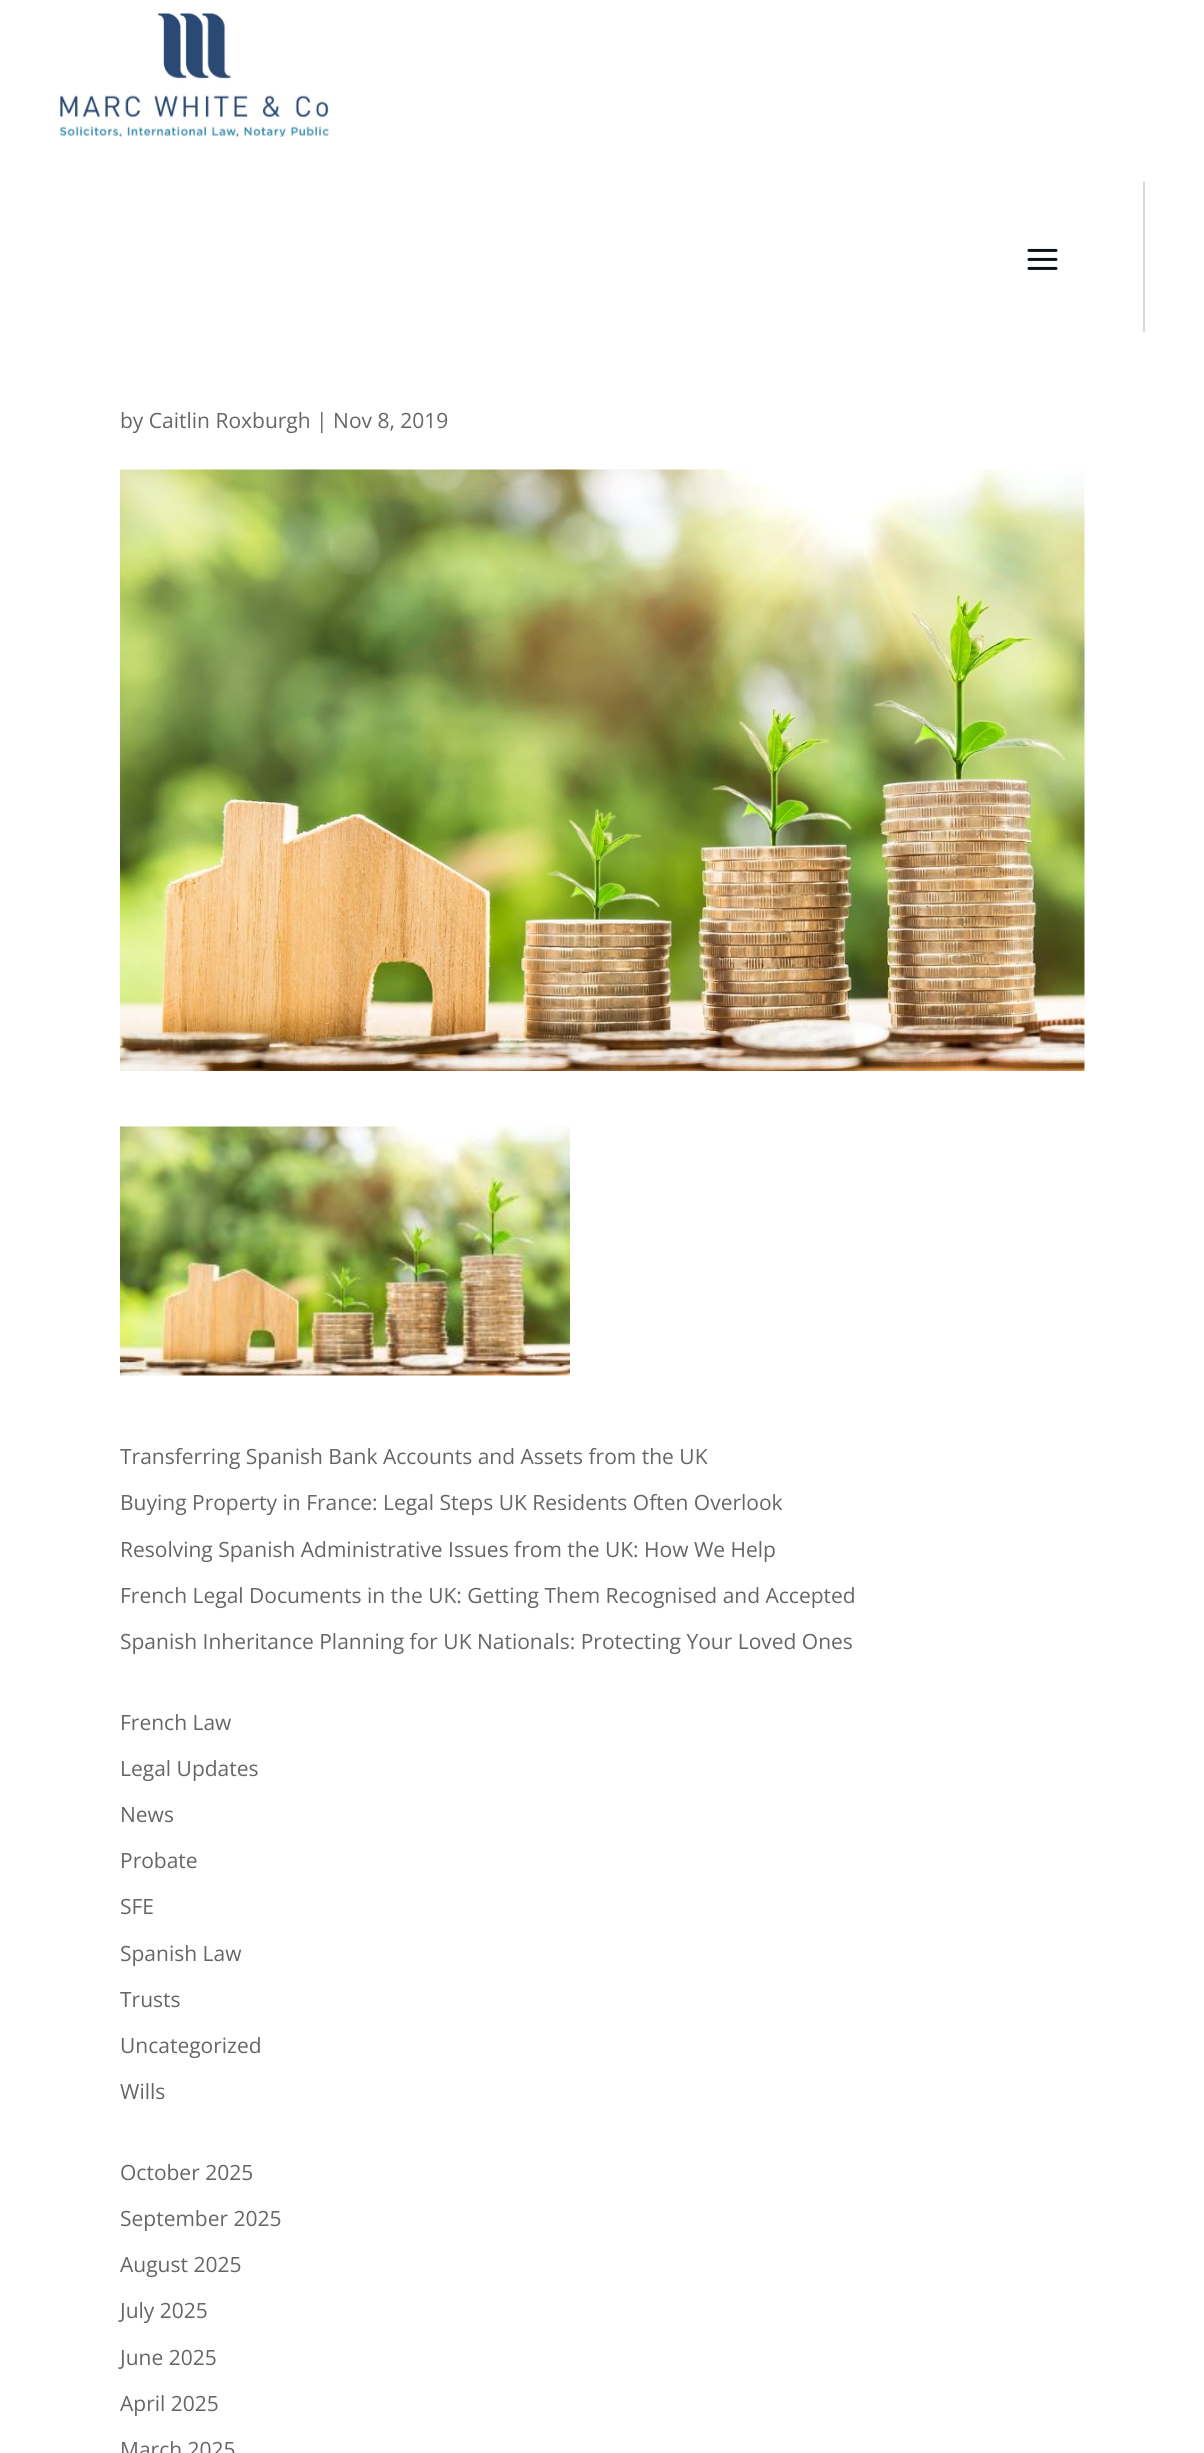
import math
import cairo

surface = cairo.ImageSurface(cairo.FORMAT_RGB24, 1204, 2453)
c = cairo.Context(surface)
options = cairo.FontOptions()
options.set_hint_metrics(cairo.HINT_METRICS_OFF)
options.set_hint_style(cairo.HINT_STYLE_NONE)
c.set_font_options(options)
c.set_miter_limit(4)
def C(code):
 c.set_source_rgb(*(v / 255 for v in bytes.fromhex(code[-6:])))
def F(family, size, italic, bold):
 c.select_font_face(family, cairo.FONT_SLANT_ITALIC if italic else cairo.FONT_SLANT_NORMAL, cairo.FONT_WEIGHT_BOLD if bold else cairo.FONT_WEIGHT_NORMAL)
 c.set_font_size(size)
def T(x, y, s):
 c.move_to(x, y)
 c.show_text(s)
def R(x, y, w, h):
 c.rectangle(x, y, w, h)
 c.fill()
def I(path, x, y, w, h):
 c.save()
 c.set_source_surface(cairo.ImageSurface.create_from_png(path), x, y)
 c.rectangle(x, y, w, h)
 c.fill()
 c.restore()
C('ffffff')
c.paint()
I('1.png',60,13,269,124)
C('d8d8d8')
R(1143,182,2,150)
I('2.png',1027,248,31,22)
F('Open Sans',21,0,0)
C('666666')
T(120,428,'by Caitlin Roxburgh | Nov 8, 2019')
I('3.png',120,469,965,602)
I('4.png',120,1126,450,250)
T(120,1464,'Transferring Spanish Bank Accounts and Assets from the UK')
T(120,1510,'Buying Property in France: Legal Steps UK Residents Often Overlook')
T(120,1557,'Resolving Spanish Administrative Issues from the UK: How We Help')
T(120,1603,'French Legal Documents in the UK: Getting Them Recognised and Accepted')
T(120,1649,'Spanish Inheritance Planning for UK Nationals: Protecting Your Loved Ones')
T(120,1730,'French Law')
T(120,1776,'Legal Updates')
T(120,1822,'News')
T(120,1868,'Probate')
T(120,1914,'SFE')
T(120,1961,'Spanish Law')
T(120,2007,'Trusts')
T(120,2053,'Uncategorized')
T(120,2099,'Wills')
T(120,2180,'October 2025')
T(120,2226,'September 2025')
T(120,2272,'August 2025')
T(120,2318,'July 2025')
T(120,2365,'June 2025')
T(120,2411,'April 2025')
T(120,2457,'March 2025')
surface.write_to_png('o.png')
